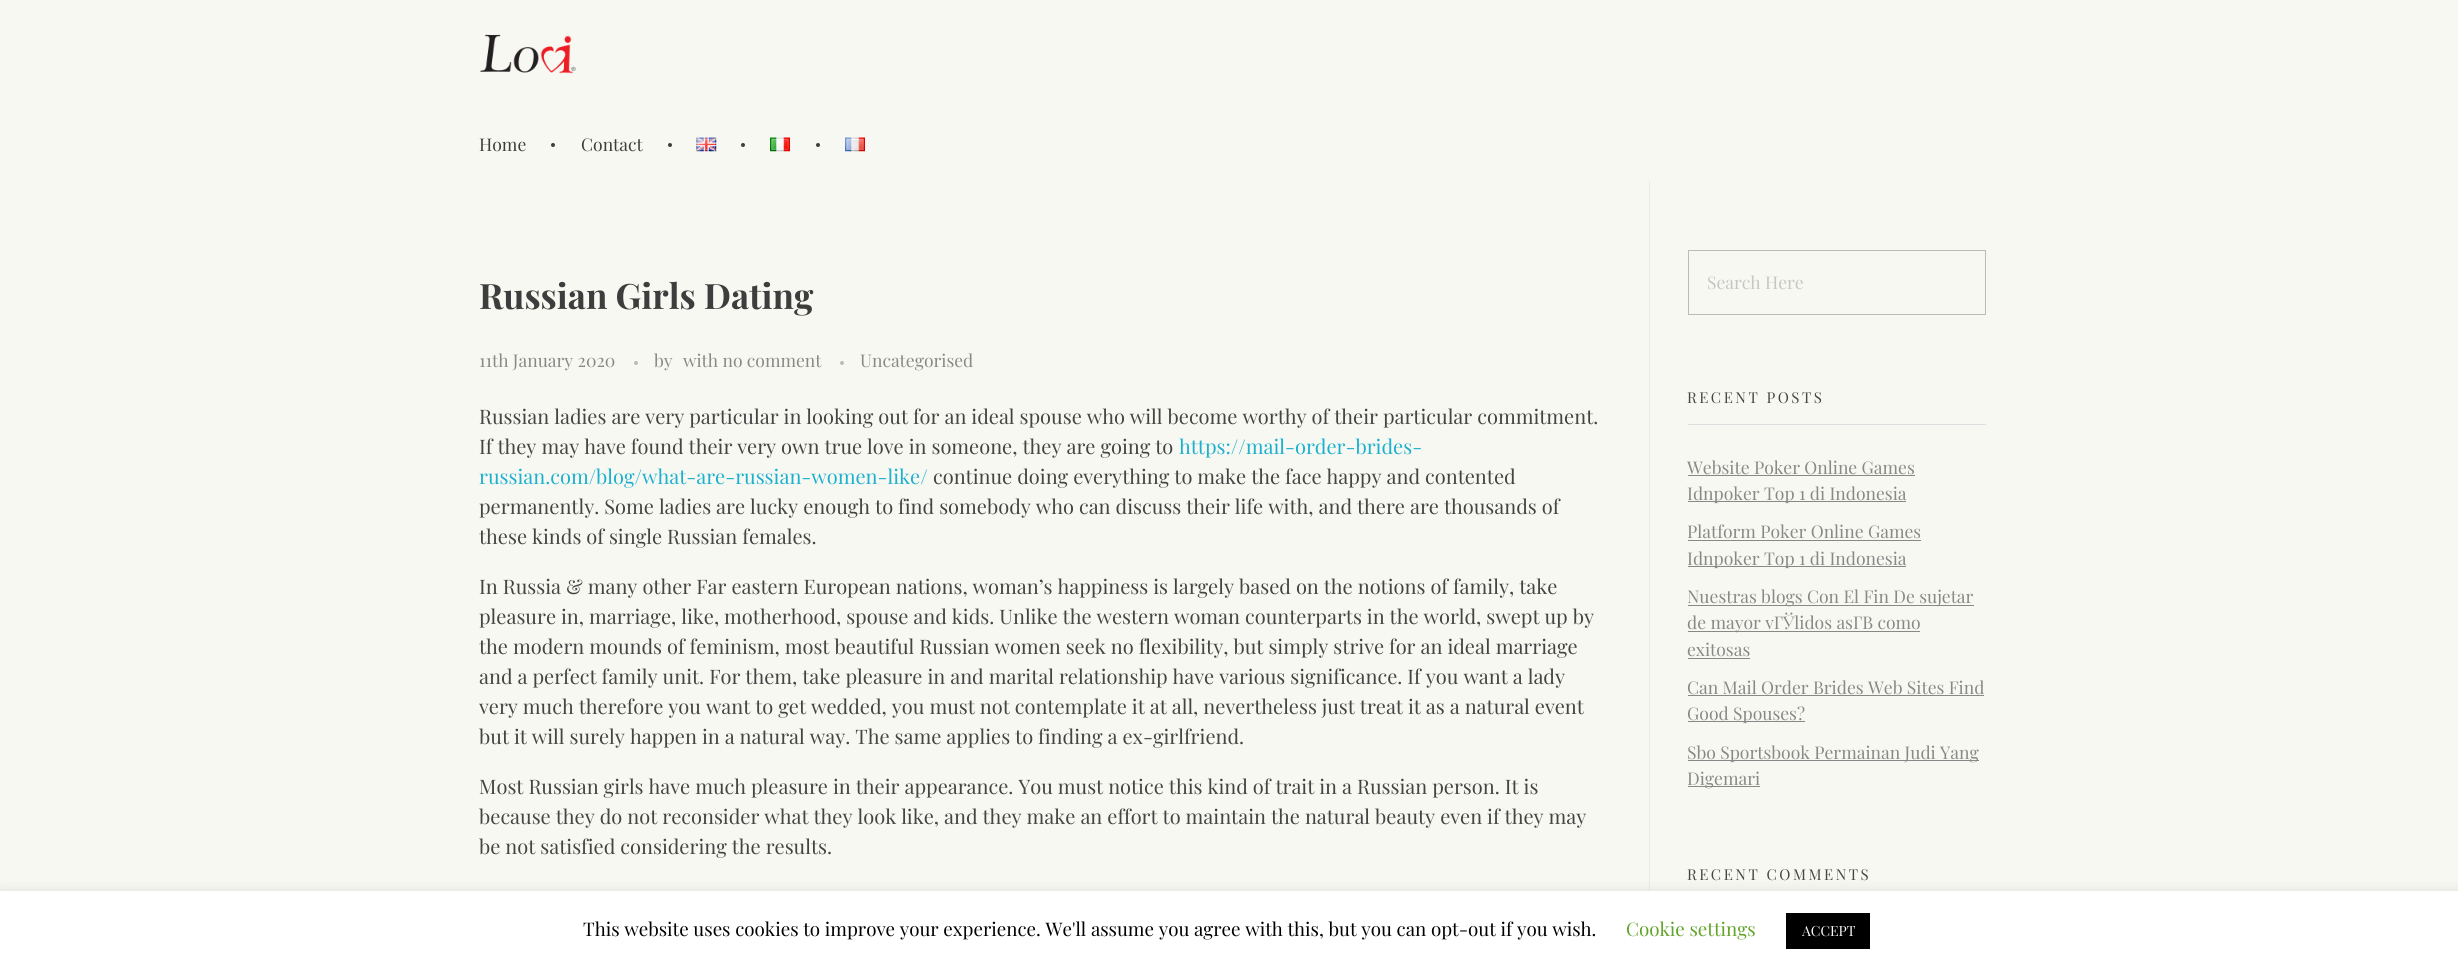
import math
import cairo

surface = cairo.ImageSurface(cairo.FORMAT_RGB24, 2458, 970)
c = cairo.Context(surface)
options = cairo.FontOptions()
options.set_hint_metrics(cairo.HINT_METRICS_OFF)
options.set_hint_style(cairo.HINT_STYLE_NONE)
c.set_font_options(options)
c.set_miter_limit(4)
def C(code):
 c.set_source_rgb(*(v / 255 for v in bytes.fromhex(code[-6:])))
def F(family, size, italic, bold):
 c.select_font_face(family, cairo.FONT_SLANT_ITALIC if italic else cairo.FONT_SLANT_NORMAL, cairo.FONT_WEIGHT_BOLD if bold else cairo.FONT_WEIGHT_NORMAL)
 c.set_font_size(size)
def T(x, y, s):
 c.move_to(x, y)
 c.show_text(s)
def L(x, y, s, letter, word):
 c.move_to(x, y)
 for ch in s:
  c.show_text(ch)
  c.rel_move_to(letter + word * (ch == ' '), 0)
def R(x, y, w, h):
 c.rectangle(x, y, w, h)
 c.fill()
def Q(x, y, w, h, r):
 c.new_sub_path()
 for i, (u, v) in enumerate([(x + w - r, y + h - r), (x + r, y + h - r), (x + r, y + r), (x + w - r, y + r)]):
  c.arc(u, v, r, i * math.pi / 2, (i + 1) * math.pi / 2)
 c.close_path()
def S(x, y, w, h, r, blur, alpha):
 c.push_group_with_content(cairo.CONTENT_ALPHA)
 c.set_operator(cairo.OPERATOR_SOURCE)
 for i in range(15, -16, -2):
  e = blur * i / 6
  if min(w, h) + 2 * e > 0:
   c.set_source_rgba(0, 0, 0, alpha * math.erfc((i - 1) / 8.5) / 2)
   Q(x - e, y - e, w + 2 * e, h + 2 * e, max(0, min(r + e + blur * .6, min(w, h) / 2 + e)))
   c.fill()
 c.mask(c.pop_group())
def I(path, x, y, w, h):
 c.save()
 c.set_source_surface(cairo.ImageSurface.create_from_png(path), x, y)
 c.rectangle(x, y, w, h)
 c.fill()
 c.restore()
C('f8f8f2')
c.paint()
I('1.png',480,34,96,40)
F('Playfair Display',17.5,0,0)
C('3d3d3d')
T(479,151,'Home')
c.new_path()
c.arc(553,145,2,0,2 * math.pi)
c.fill()
T(581,151,'Contact')
c.new_path()
c.arc(670,145,2,0,2 * math.pi)
c.fill()
I('2.png',696,137,21,15)
c.arc(743,145,2,0,2 * math.pi)
c.fill()
I('3.png',770,137,20,15)
c.arc(818,145,2,0,2 * math.pi)
c.fill()
I('4.png',845,137,20,15)
F('Playfair Display',35,0,1)
T(479,309,'Russian Girls Dating')
F('Playfair Display',17.5,0,0)
C('888888')
T(479,367,'11th January 2020')
C('bbbbbb')
c.new_path()
c.arc(636,363,2,0,2 * math.pi)
c.fill()
C('888888')
T(654,367,'by')
T(683,367,'with no comment')
C('bbbbbb')
c.new_path()
c.arc(842,363,2,0,2 * math.pi)
c.fill()
C('888888')
T(860,367,'Uncategorised')
F('Playfair Display',20,0,0)
C('444444')
T(479,424,'Russian ladies are very particular in looking out for an ideal spouse who will become worthy of their particular commitment.')
T(479,454,'If they may have found their very own true love in someone, they are going to')
C('1bb0ce')
T(1179,454,'https://mail-order-brides-')
T(479,484,'russian.com/blog/what-are-russian-women-like/')
C('444444')
T(933,484,'continue doing everything to make the face happy and contented')
T(479,514,'permanently. Some ladies are lucky enough to find somebody who can discuss their life with, and there are thousands of')
T(479,544,'these kinds of single Russian females.')
T(479,594,'In Russia & many other Far eastern European nations, woman’s happiness is largely based on the notions of family, take')
T(479,624,'pleasure in, marriage, like, motherhood, spouse and kids. Unlike the western woman counterparts in the world, swept up by')
T(479,654,'the modern mounds of feminism, most beautiful Russian women seek no flexibility, but simply strive for an ideal marriage')
T(479,684,'and a perfect family unit. For them, take pleasure in and marital relationship have various significance. If you want a lady')
T(479,714,'very much therefore you want to get wedded, you must not contemplate it at all, nevertheless just treat it as a natural event')
T(479,744,'but it will surely happen in a natural way. The same applies to finding a ex-girlfriend.')
T(479,794,'Most Russian girls have much pleasure in their appearance. You must notice this kind of trait in a Russian person. It is')
T(479,824,'because they do not reconsider what they look like, and they make an effort to maintain the natural beauty even if they may')
T(479,854,'be not satisfied considering the results.')
C('eaeaea')
R(1649,181,1,710)
c.rectangle(1688.5,250.5,297,64)
C('bbbbbb')
c.set_line_width(1)
c.stroke()
F('Playfair Display',17.5,0,0)
C('c5c5c5')
T(1707,289,'Search Here')
C('dedede')
R(1688,424,298,1)
F('Playfair Display',15,0,0)
C('444444')
L(1687,403,'RECENT POSTS',2.5,0)
F('Playfair Display',17.5,0,0)
C('888888')
T(1687,474,'Website Poker Online Games')
R(1688,475,227,1)
R(1688,501,218,1)
T(1687,500,'Idnpoker Top 1 di Indonesia')
T(1687,538,'Platform Poker Online Games')
R(1688,540,233,1)
R(1688,566,218,1)
T(1687,565,'Idnpoker Top 1 di Indonesia')
R(1688,605,286,1)
T(1687,603,'Nuestras blogs Con El Fin De sujetar')
R(1688,631,232,1)
T(1687,629,'de mayor vГЎlidos asГВ como')
T(1687,656,'exitosas')
R(1688,658,62,1)
T(1687,694,'Can Mail Order Brides Web Sites Find')
R(1688,695,296,1)
R(1688,721,117,1)
T(1687,720,'Good Spouses?')
R(1688,760,291,1)
T(1687,759,'Sbo Sportsbook Permainan Judi Yang')
R(1688,786,72,1)
T(1687,785,'Digemari')
F('Playfair Display',15,0,0)
C('444444')
L(1687,880,'RECENT COMMENTS',2.5,0)
C('acabab')
S(0,890,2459,79,0,6,.3)
C('ffffff')
R(0,891,2458,79)
F('Playfair Display',18.75,0,0)
C('000000')
T(583,936,'This website uses cookies to improve your experience. We\'ll assume you agree with this, but you can opt-out if you wish.')
C('62a329')
T(1626,936,'Cookie settings')
C('000000')
R(1786,913,84,36)
F('Playfair Display',14,0,0)
C('ffffff')
T(1802,936,'ACCEPT')
surface.write_to_png('o.png')
